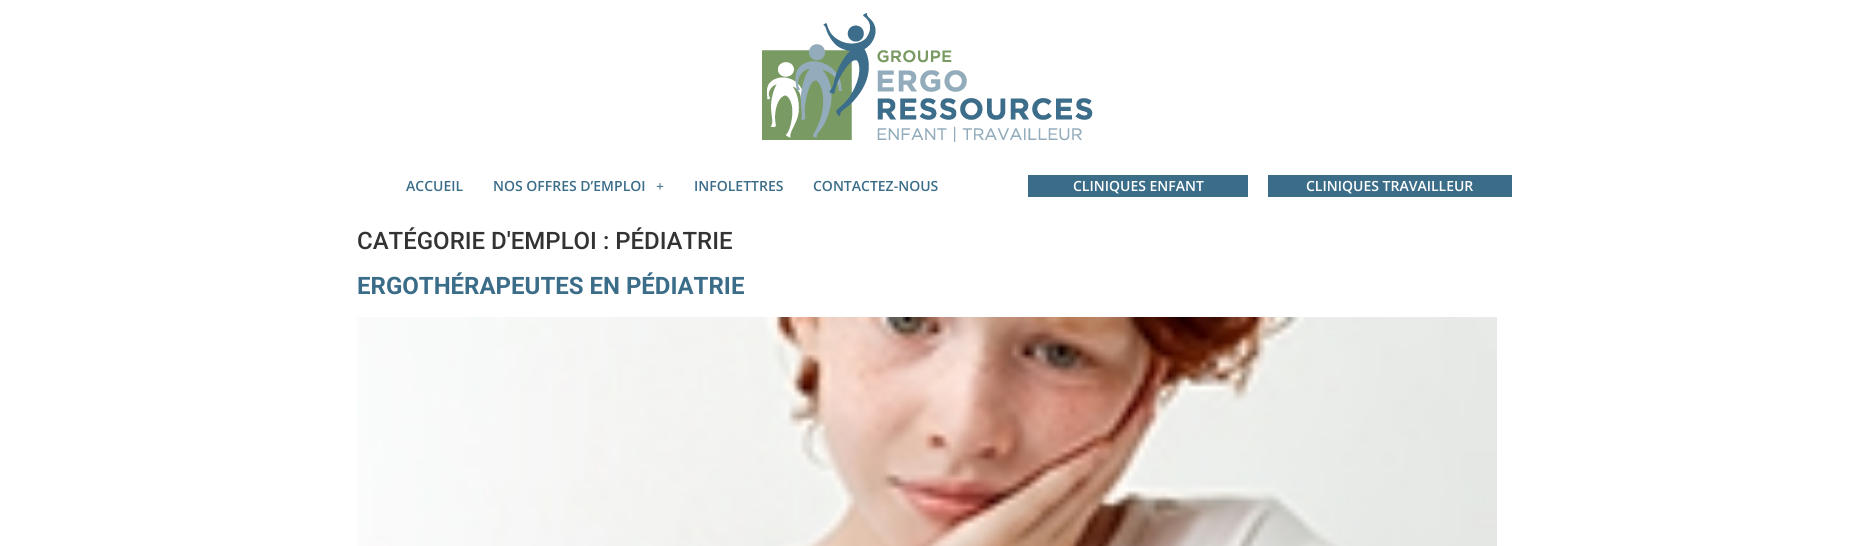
import math
import cairo

surface = cairo.ImageSurface(cairo.FORMAT_RGB24, 1854, 546)
c = cairo.Context(surface)
options = cairo.FontOptions()
options.set_hint_metrics(cairo.HINT_METRICS_OFF)
options.set_hint_style(cairo.HINT_STYLE_NONE)
c.set_font_options(options)
c.set_miter_limit(4)
def C(code):
 c.set_source_rgb(*(v / 255 for v in bytes.fromhex(code[-6:])))
def F(family, size, italic, bold):
 c.select_font_face(family, cairo.FONT_SLANT_ITALIC if italic else cairo.FONT_SLANT_NORMAL, cairo.FONT_WEIGHT_BOLD if bold else cairo.FONT_WEIGHT_NORMAL)
 c.set_font_size(size)
def T(x, y, s):
 c.move_to(x, y)
 c.show_text(s)
def R(x, y, w, h):
 c.rectangle(x, y, w, h)
 c.fill()
def I(path, x, y, w, h):
 c.save()
 c.set_source_surface(cairo.ImageSurface.create_from_png(path), x, y)
 c.rectangle(x, y, w, h)
 c.fill()
 c.restore()
C('ffffff')
c.paint()
I('1.png',762,13,331,129)
F('Open Sans SemiBold',14,0,0)
C('3b6d89')
T(406,191,'ACCUEIL')
T(493,191,'NOS OFFRES D’EMPLOI')
F('Liberation Serif',14,0,1)
T(656,191,'+')
F('Open Sans SemiBold',14,0,0)
T(694,191,'INFOLETTRES')
T(813,191,'CONTACTEZ-NOUS')
R(1028,175,220,22)
C('ffffff')
T(1073,191,'CLINIQUES ENFANT')
C('3b6d89')
R(1268,175,244,22)
C('ffffff')
T(1306,191,'CLINIQUES TRAVAILLEUR')
F('Roboto Medium',24,0,0)
C('333333')
T(357,249,'CATÉGORIE D\'EMPLOI : PÉDIATRIE')
F('Roboto',24,0,1)
C('3b6d89')
T(357,294,'ERGOTHÉRAPEUTES EN PÉDIATRIE')
I('2.png',357,317,1140,229)
surface.write_to_png('o.png')
